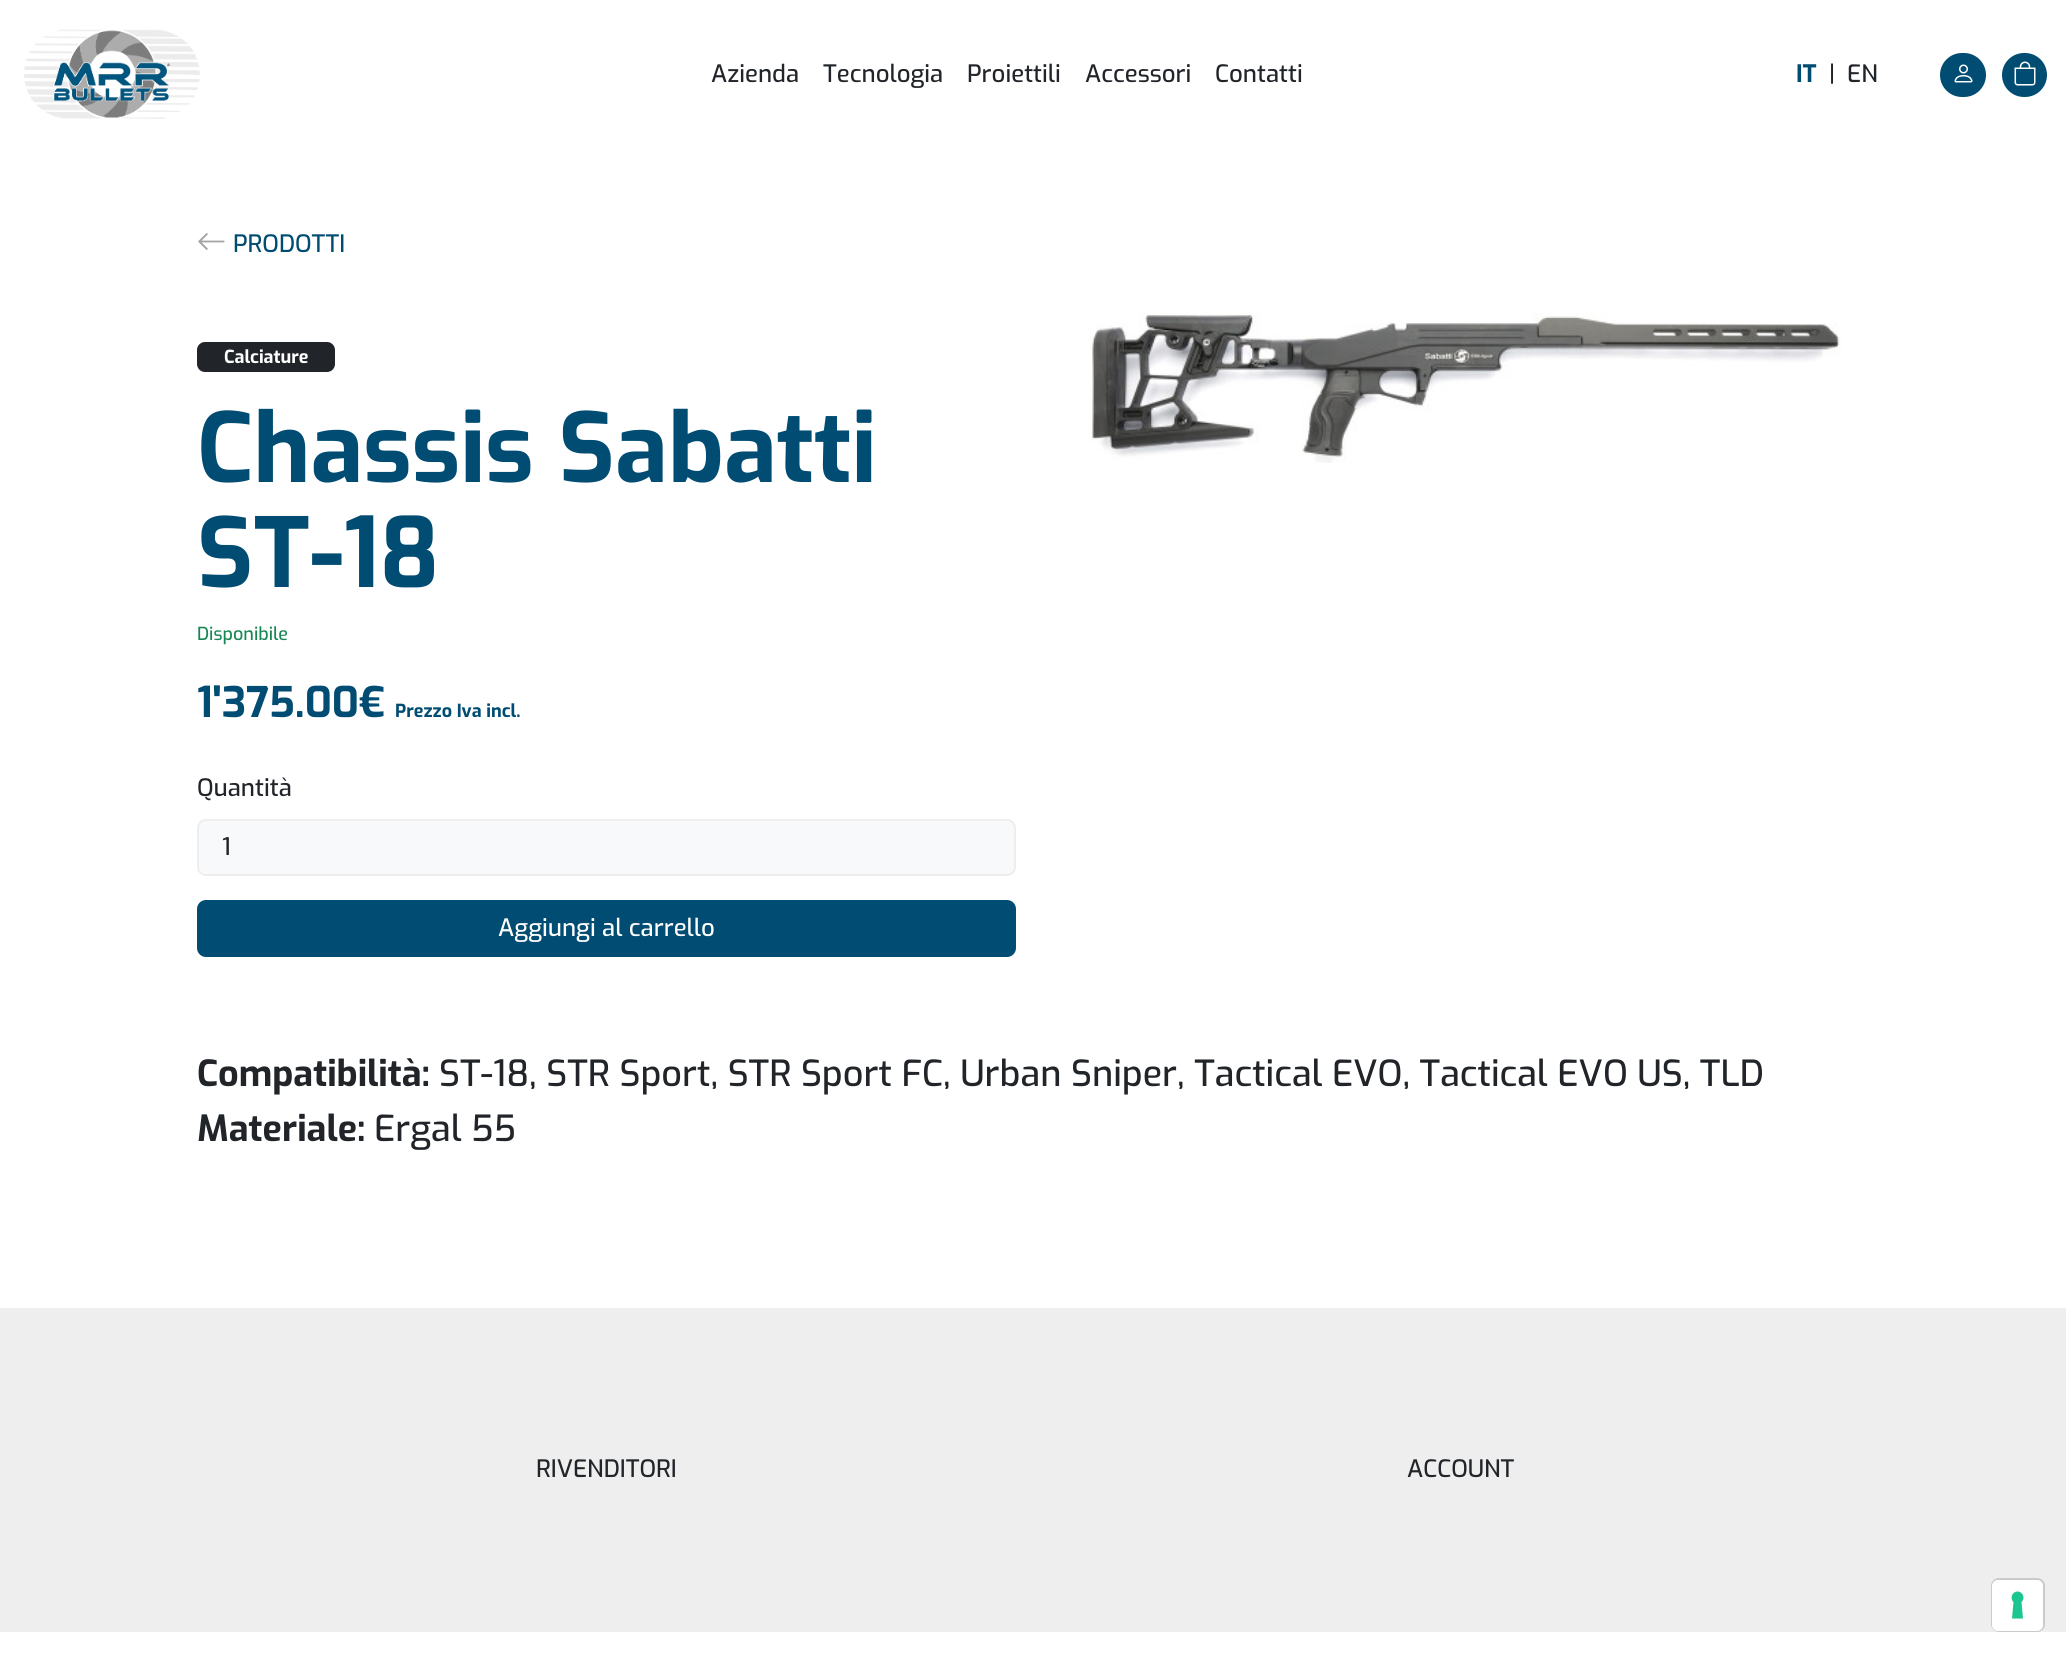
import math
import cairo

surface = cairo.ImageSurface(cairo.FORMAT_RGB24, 2066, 1654)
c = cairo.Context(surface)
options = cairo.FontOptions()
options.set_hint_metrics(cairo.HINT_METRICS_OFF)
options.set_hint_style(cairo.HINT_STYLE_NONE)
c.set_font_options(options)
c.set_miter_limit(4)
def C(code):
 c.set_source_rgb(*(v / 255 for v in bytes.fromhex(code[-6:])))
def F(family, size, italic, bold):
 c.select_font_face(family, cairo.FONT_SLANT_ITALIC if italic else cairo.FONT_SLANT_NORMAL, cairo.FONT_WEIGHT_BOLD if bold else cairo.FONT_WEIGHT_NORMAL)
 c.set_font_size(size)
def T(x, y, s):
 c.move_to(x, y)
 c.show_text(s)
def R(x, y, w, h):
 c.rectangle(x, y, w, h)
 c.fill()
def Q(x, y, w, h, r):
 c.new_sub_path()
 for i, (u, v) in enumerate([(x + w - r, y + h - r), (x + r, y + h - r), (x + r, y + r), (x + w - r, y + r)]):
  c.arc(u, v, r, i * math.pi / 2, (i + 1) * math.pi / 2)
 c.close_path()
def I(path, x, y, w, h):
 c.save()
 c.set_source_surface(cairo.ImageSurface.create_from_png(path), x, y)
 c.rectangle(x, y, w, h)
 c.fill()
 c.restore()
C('ffffff')
c.paint()
I('1.png',24,29,176,90)
F('Exo Medium',24,0,0)
C('212529')
T(711,82,'Azienda')
T(823,82,'Tecnologia')
T(967,82,'Proiettili')
T(1085,82,'Accessori')
T(1215,82,'Contatti')
F('Exo',24,0,1)
C('014c72')
T(1796,82,'IT')
F('Exo Medium',24,0,0)
C('212529')
T(1829,82,'|')
T(1847,82,'EN')
C('014c72')
Q(1939,52,48,46,23)
c.fill_preserve()
C('ffffff')
c.stroke()
I('2.png',1954,64,19,19)
C('014c72')
Q(2001,52,47,46,23)
c.fill_preserve()
C('ffffff')
c.stroke()
I('3.png',2014,61,22,25)
I('4.png',198,233,27,17)
C('014c72')
T(233,252,'PRODOTTI')
C('212529')
Q(197,342,138,30,8)
c.fill()
F('Exo',18,0,1)
C('ffffff')
T(224,363,'Calciature')
F('Exo',96,0,1)
C('014c72')
T(197,482,'Chassis Sabatti')
T(197,587,'ST-18')
F('Exo Medium',18,0,0)
C('198754')
T(197,640,'Disponibile')
F('Exo',42,0,1)
C('014c72')
T(197,717,'1\'375.00€')
F('Exo',18,0,1)
T(395,717,'Prezzo Iva incl.')
F('Exo Medium',24,0,0)
C('212529')
T(197,796,'Quantità')
C('f8f9fa')
Q(198,820,817,55,8)
c.fill_preserve()
C('eeeeee')
c.stroke()
C('212529')
T(222,855,'1')
C('014c72')
Q(198,901,817,55,8)
c.fill_preserve()
c.stroke()
C('ffffff')
T(498,936,'Aggiungi al carrello')
I('5.png',1090,313,753,150)
F('Exo',36,0,1)
C('212529')
T(197,1086,'Compatibilità:')
F('Exo Medium',36,0,0)
T(439,1086,'ST-18, STR Sport, STR Sport FC, Urban Sniper, Tactical EVO, Tactical EVO US, TLD')
F('Exo',36,0,1)
T(197,1141,'Materiale:')
F('Exo Medium',36,0,0)
T(374,1141,'Ergal 55')
C('eeeeee')
R(0,1308,2066,324)
F('Exo Medium',24,0,0)
C('212529')
T(536,1477,'RIVENDITORI')
T(1407,1477,'ACCOUNT')
Q(1992,1579,52,52,7)
C('cacaca')
c.stroke()
C('ffffff')
Q(1992,1580,51,51,6)
c.fill()
C('1cc691')
c.set_fill_rule(cairo.FILL_RULE_EVEN_ODD)
c.new_path()
c.move_to(2017.5,1591.5)
c.curve_to(2023,1591.5,2025.5,1598.5,2021.5,1602)
c.line_to(2023,1618.5)
c.line_to(2012,1618.5)
c.line_to(2013.5,1602)
c.curve_to(2009.5,1598.5,2012,1591.5,2017.5,1591.5)
c.close_path()
c.fill()
surface.write_to_png('o.png')
